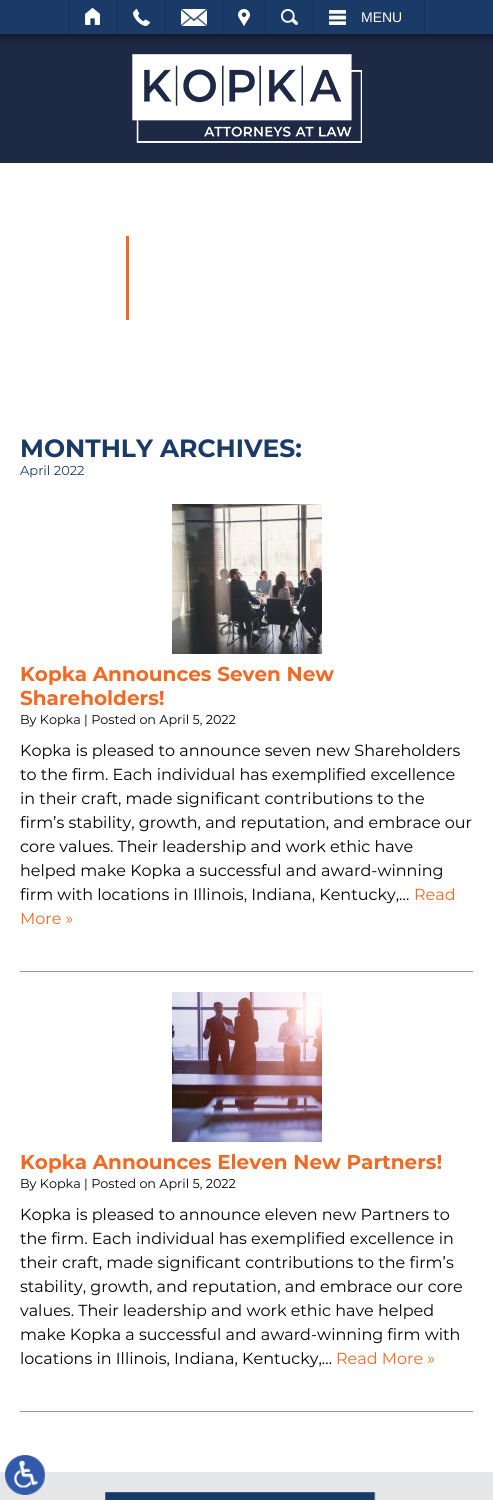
import math
import cairo

surface = cairo.ImageSurface(cairo.FORMAT_RGB24, 493, 1500)
c = cairo.Context(surface)
options = cairo.FontOptions()
options.set_hint_metrics(cairo.HINT_METRICS_OFF)
options.set_hint_style(cairo.HINT_STYLE_NONE)
c.set_font_options(options)
c.set_miter_limit(4)
def C(code):
 c.set_source_rgb(*(v / 255 for v in bytes.fromhex(code[-6:])))
def F(family, size, italic, bold):
 c.select_font_face(family, cairo.FONT_SLANT_ITALIC if italic else cairo.FONT_SLANT_NORMAL, cairo.FONT_WEIGHT_BOLD if bold else cairo.FONT_WEIGHT_NORMAL)
 c.set_font_size(size)
def T(x, y, s):
 c.move_to(x, y)
 c.show_text(s)
def R(x, y, w, h):
 c.rectangle(x, y, w, h)
 c.fill()
def Q(x, y, w, h, r):
 c.new_sub_path()
 for i, (u, v) in enumerate([(x + w - r, y + h - r), (x + r, y + h - r), (x + r, y + r), (x + w - r, y + r)]):
  c.arc(u, v, r, i * math.pi / 2, (i + 1) * math.pi / 2)
 c.close_path()
def S(x, y, w, h, r, blur, alpha):
 c.push_group_with_content(cairo.CONTENT_ALPHA)
 c.set_operator(cairo.OPERATOR_SOURCE)
 for i in range(15, -16, -2):
  e = blur * i / 6
  if min(w, h) + 2 * e > 0:
   c.set_source_rgba(0, 0, 0, alpha * math.erfc((i - 1) / 8.5) / 2)
   Q(x - e, y - e, w + 2 * e, h + 2 * e, max(0, min(r + e + blur * .6, min(w, h) / 2 + e)))
   c.fill()
 c.mask(c.pop_group())
def I(path, x, y, w, h):
 c.save()
 c.set_source_surface(cairo.ImageSurface.create_from_png(path), x, y)
 c.rectangle(x, y, w, h)
 c.fill()
 c.restore()
C('ffffff')
c.paint()
C('1d2945')
R(0,34,493,129)
C('000000')
S(0,1,493,34,0,5,.7)
C('1a3b67')
R(0,0,493,34)
C('11315a')
R(117,0,1,34)
R(69,0,1,34)
I('1.png',85,8,15,17)
R(165,0,1,34)
I('2.png',133,9,17,17)
R(222,0,1,34)
I('3.png',181,9,26,17)
R(265,0,1,34)
I('4.png',238,9,12,17)
R(313,0,1,34)
I('5.png',281,9,17,16)
R(424,0,1,34)
I('6.png',329,10,17,15)
F('Liberation Sans',14,0,0)
C('ffffff')
T(361,22,'MENU')
I('7.png',132,54,230,89)
C('f06a25')
R(126,236,3,84)
F('Montserrat',25,0,1)
C('1a3b67')
T(20,457,'MONTHLY ARCHIVES:')
F('Montserrat',13,0,0)
T(20,475,'April 2022')
C('999999')
R(20,971,453,1)
I('8.png',172,504,150,150)
F('Montserrat',20,0,1)
C('f16a24')
T(20,681,'Kopka Announces Seven New')
T(20,705,'Shareholders!')
F('Montserrat',12.75,0,0)
C('000000')
T(20,724,'By Kopka | Posted on April 5, 2022')
F('Montserrat',16,0,0)
T(20,756,'Kopka is pleased to announce seven new Shareholders')
T(20,780,'to the firm. Each individual has exemplified excellence')
T(20,804,'in their craft, made significant contributions to the')
T(20,828,'firm’s stability, growth, and reputation, and embrace our')
T(20,852,'core values. Their leadership and work ethic have')
T(20,876,'helped make Kopka a successful and award-winning')
T(20,900,'firm with locations in Illinois, Indiana, Kentucky,…')
C('f16a24')
T(414,900,'Read')
T(20,924,'More »')
C('999999')
R(20,1411,453,1)
I('9.png',172,992,150,150)
F('Montserrat',20,0,1)
C('f16a24')
T(20,1169,'Kopka Announces Eleven New Partners!')
F('Montserrat',12.75,0,0)
C('000000')
T(20,1188,'By Kopka | Posted on April 5, 2022')
F('Montserrat',16,0,0)
T(20,1220,'Kopka is pleased to announce eleven new Partners to')
T(20,1244,'the firm. Each individual has exemplified excellence in')
T(20,1268,'their craft, made significant contributions to the firm’s')
T(20,1292,'stability, growth, and reputation, and embrace our core')
T(20,1316,'values. Their leadership and work ethic have helped')
T(20,1340,'make Kopka a successful and award-winning firm with')
T(20,1364,'locations in Illinois, Indiana, Kentucky,…')
C('f16a24')
T(336,1364,'Read More »')
C('e6e7e8')
R(0,1472,493,28)
I('10.png',105,1492,271,8)
I('11.png',5,1455,40,40)
surface.write_to_png('o.png')
